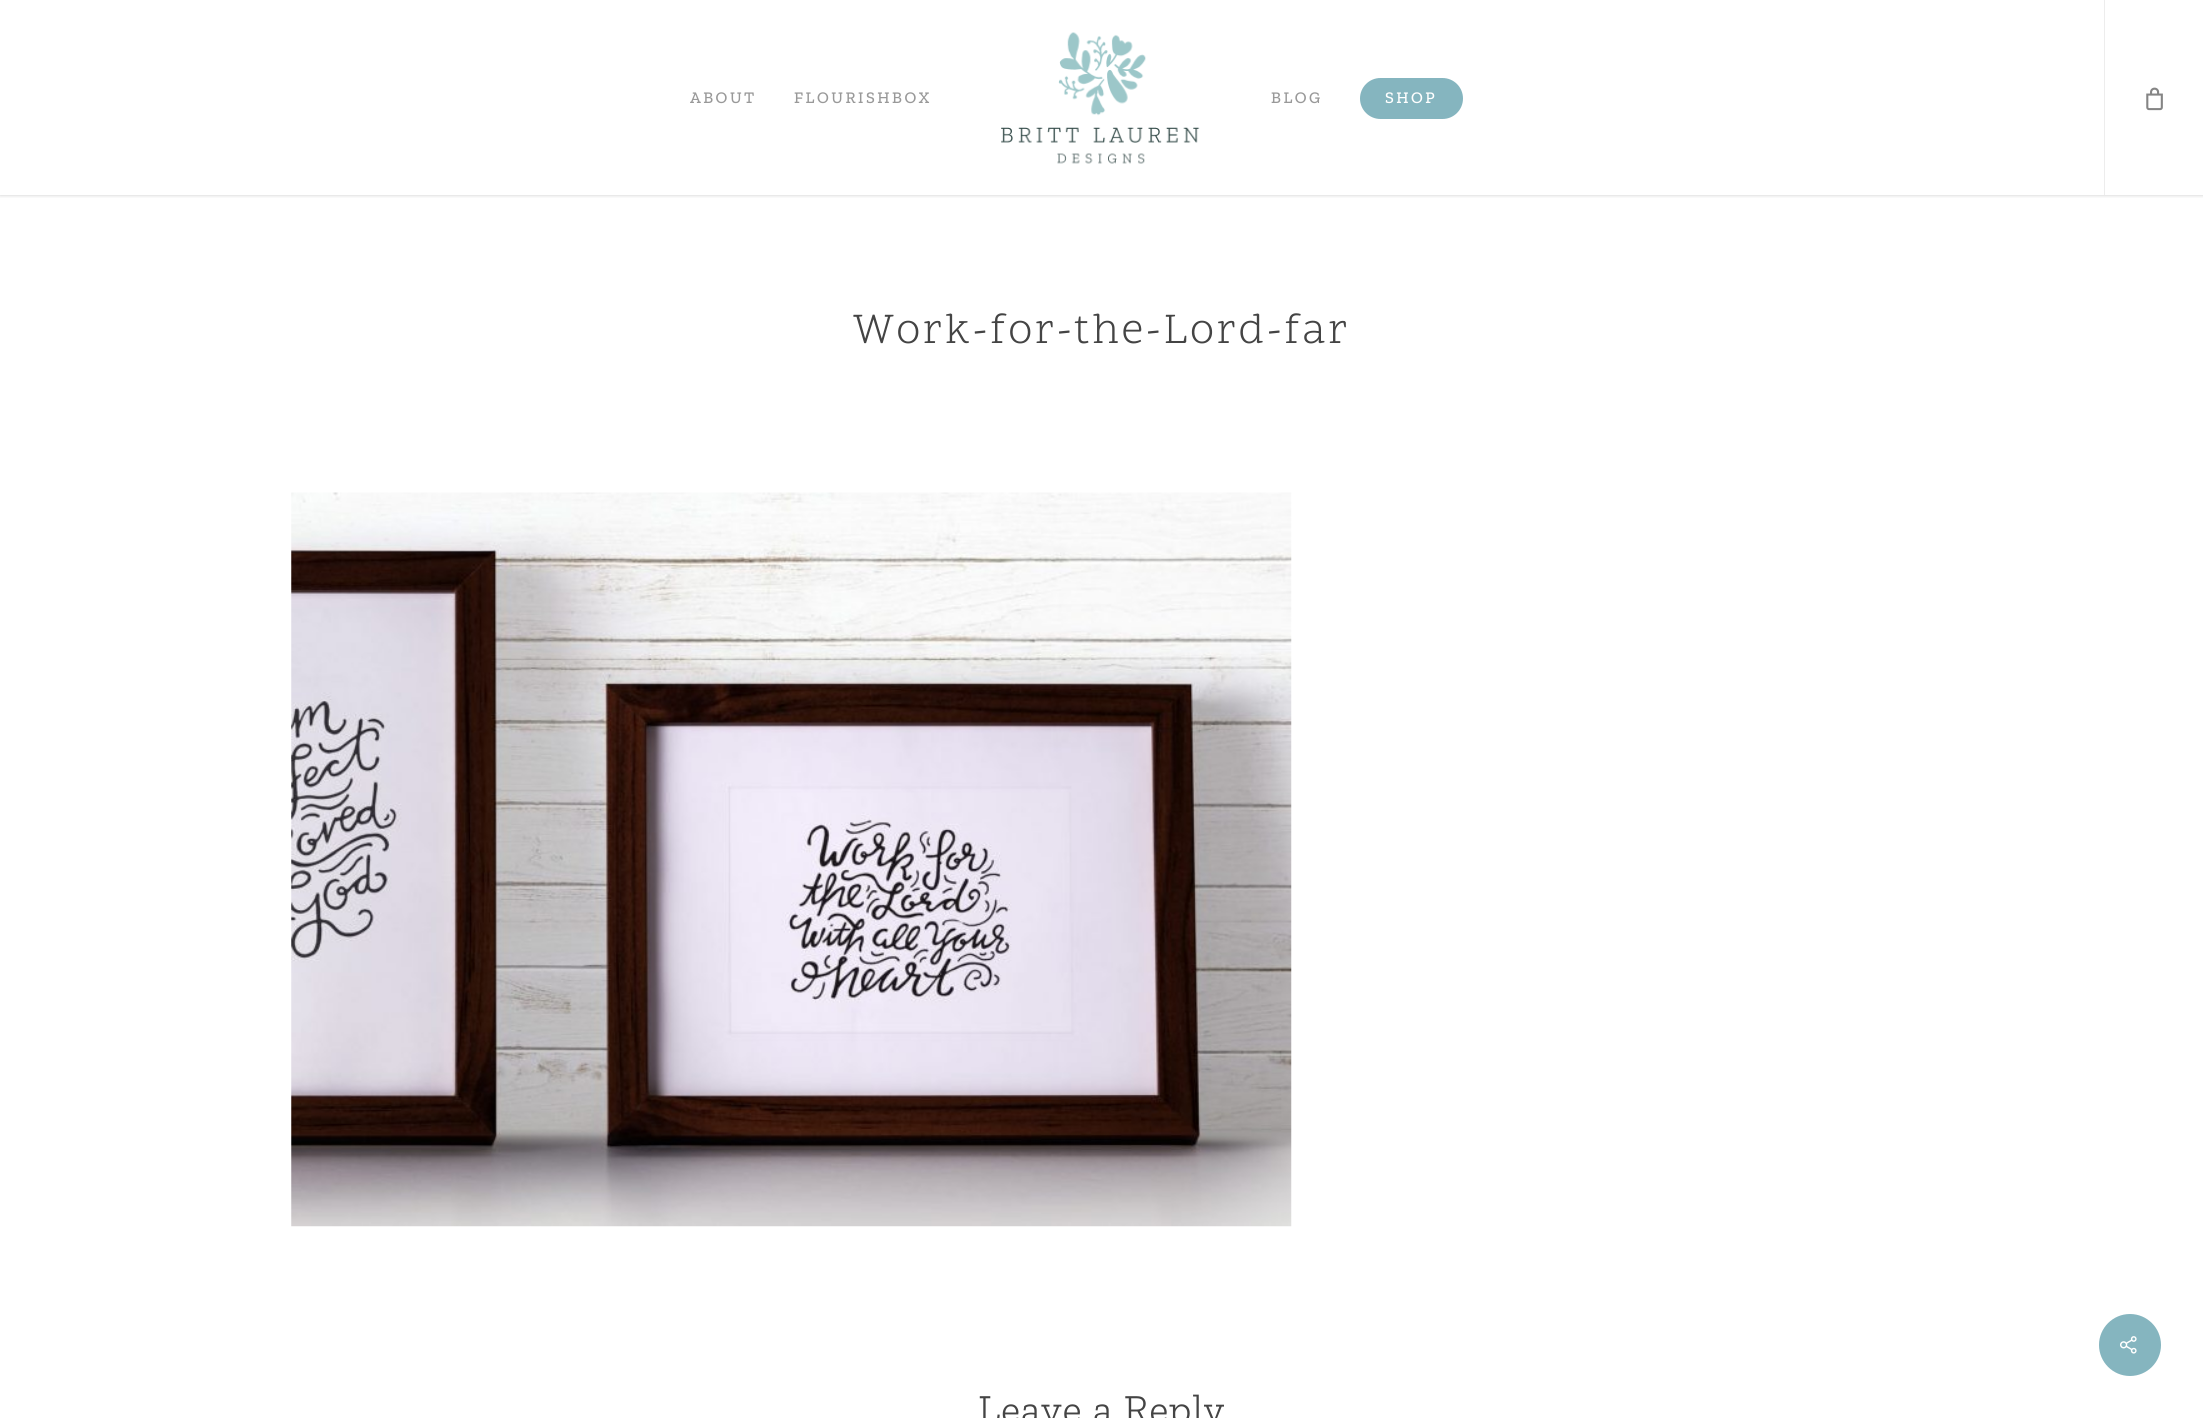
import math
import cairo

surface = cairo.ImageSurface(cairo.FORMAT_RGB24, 2203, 1418)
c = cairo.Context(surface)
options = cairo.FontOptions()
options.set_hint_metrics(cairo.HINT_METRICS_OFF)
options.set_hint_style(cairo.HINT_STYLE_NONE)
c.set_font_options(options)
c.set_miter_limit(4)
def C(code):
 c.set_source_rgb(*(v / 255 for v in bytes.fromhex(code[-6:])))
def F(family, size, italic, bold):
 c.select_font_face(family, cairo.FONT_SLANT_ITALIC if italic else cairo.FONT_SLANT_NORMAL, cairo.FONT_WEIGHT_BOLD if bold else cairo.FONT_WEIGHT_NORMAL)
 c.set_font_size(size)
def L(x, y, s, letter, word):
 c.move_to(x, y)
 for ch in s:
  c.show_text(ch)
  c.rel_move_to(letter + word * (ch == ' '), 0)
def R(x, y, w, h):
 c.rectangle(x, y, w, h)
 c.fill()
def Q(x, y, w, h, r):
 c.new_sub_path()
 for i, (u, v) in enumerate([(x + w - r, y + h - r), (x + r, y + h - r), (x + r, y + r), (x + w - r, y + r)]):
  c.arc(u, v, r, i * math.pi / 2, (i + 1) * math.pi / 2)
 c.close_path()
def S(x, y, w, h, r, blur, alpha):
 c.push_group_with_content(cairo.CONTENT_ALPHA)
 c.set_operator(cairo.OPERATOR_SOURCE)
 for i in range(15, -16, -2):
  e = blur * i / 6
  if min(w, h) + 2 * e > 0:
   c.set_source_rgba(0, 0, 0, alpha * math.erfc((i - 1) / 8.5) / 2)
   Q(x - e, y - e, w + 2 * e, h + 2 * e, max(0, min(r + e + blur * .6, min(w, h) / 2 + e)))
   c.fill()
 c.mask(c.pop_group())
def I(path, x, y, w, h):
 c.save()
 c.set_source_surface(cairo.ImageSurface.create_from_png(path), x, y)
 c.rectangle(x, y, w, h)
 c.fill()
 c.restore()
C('ffffff')
c.paint()
c.save()
c.rectangle(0,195,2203,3)
c.clip()
C('000000')
S(0,0,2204,195,0,2,.22)
c.restore()
I('1.png',1001,32,199,132)
F('Zilla Slab Medium',16.25,0,0)
C('999999')
L(690,103,'ABOUT',2.5,0)
L(794,103,'FLOURISHBOX',2.5,0)
L(1271,103,'BLOG',2.5,0)
C('85b5bf')
Q(1360,78,103,41,20.5)
c.fill()
C('ffffff')
L(1385,103,'SHOP',2.5,0)
C('ededed')
R(2104,0,1,195)
I('2.png',2146,87,17,24)
F('Scope One',43.75,0,0)
C('444444')
L(853,343,'Work-for-the-Lord-far',2.5,0)
I('3.png',291,492,1001,735)
F('Zilla Slab Light',41.25,0,0)
L(978,1423,'Leave a Reply',.6,0)
C('85b5bf')
c.new_path()
c.arc(2130,1345,31,0,2 * math.pi)
c.fill()
I('4.png',2120,1336,17,18)
surface.write_to_png('o.png')
